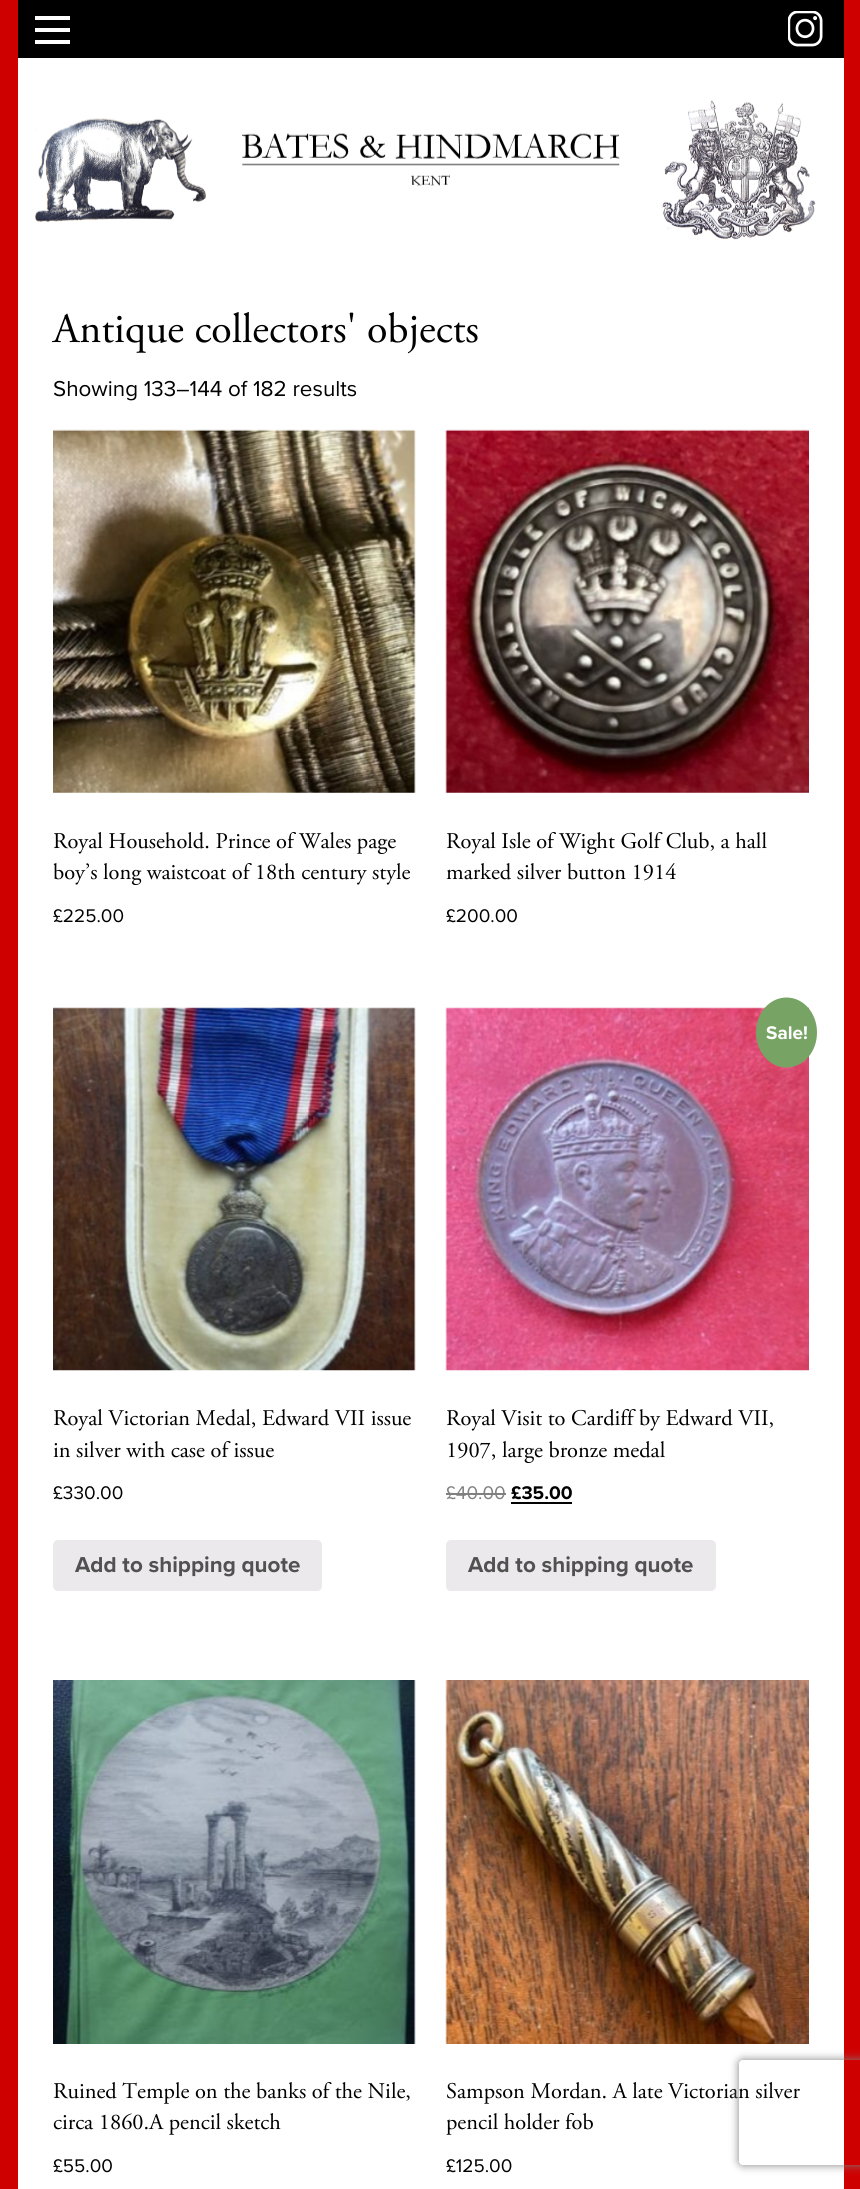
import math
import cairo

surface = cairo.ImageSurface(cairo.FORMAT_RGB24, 860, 2189)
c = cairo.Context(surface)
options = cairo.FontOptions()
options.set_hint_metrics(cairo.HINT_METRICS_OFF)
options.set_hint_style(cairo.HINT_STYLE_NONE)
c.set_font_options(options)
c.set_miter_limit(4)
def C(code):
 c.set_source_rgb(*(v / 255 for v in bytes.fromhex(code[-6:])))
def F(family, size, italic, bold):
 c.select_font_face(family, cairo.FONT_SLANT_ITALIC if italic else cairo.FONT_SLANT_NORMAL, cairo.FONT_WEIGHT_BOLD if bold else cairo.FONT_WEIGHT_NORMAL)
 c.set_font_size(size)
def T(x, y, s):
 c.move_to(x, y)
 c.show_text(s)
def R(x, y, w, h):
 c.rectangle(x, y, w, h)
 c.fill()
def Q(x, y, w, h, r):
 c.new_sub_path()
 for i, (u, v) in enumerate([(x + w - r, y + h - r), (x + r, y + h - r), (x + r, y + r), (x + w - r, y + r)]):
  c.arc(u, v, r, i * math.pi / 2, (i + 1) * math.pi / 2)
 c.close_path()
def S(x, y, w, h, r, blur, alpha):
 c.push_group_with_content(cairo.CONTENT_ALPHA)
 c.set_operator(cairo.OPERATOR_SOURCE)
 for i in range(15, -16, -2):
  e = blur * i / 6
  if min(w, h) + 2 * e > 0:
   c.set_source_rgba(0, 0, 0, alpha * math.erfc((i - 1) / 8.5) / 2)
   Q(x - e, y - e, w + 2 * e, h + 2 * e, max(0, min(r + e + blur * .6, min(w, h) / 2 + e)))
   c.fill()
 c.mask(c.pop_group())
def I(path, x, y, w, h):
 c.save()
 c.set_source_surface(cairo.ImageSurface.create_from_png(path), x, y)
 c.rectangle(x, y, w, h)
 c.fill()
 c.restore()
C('ce0000')
c.paint()
C('000000')
R(18,0,826,58)
C('ffffff')
R(35,40,35,4)
R(35,28,35,4)
R(35,16,35,4)
I('1.png',788,11,35,36)
R(18,58,826,2131)
I('2.png',35,118,171,104)
I('3.png',242,133,378,53)
I('4.png',661,100,155,140)
F('Adobe Garamond',42,0,0)
C('000000')
T(53,342,'Antique collectors\' objects')
F('Proxima Nova',22.4,0,0)
T(53,396,'Showing 133–144 of 182 results')
I('5.png',53,429,363,364)
F('Adobe Garamond',22.4,0,0)
T(53,848,'Royal Household. Prince of Wales page')
T(53,879,'boy’s long waistcoat of 18th century style')
F('Proxima Nova',19,0,0)
T(53,922,'£225.00')
I('6.png',445,429,364,364)
F('Adobe Garamond',22.4,0,0)
T(446,848,'Royal Isle of Wight Golf Club, a hall')
T(446,879,'marked silver button 1914')
F('Proxima Nova',19,0,0)
T(446,922,'£200.00')
I('7.png',53,1007,363,364)
F('Adobe Garamond',22.4,0,0)
T(53,1425,'Royal Victorian Medal, Edward VII issue')
T(53,1457,'in silver with case of issue')
F('Proxima Nova',19,0,0)
T(53,1499,'£330.00')
C('ebe9eb')
Q(53,1540,269,51,5)
c.fill()
F('Proxima Nova',22.4,0,1)
C('515151')
T(75,1572,'Add to shipping quote')
I('8.png',445,1007,364,364)
C('77a464')
c.new_path()
c.move_to(786.5,997.5)
c.curve_to(803.5,997.5,817,1013,817,1032.5)
c.curve_to(817,1052,803.5,1067.5,786.5,1067.5)
c.curve_to(769.5,1067.5,756,1052,756,1032.5)
c.curve_to(756,1013,769.5,997.5,786.5,997.5)
c.close_path()
c.fill()
F('Proxima Nova',19,0,1)
C('ffffff')
T(766,1039,'Sale!')
F('Adobe Garamond',22.4,0,0)
C('000000')
T(446,1425,'Royal Visit to Cardiff by Edward VII,')
T(446,1457,'1907, large bronze medal')
F('Proxima Nova',19,0,0)
C('808080')
T(446,1499,'£40.00')
R(446,1493,60,2)
F('Proxima Nova',19,0,1)
C('000000')
T(511,1499,'£35.00')
R(511,1502,61,2)
C('ebe9eb')
Q(446,1540,270,51,5)
c.fill()
F('Proxima Nova',22.4,0,1)
C('515151')
T(468,1572,'Add to shipping quote')
I('9.png',53,1680,363,364)
F('Adobe Garamond',22.4,0,0)
C('000000')
T(53,2098,'Ruined Temple on the banks of the Nile,')
T(53,2129,'circa 1860.A pencil sketch')
F('Proxima Nova',19,0,0)
T(53,2172,'£55.00')
I('10.png',445,1680,364,364)
F('Adobe Garamond',22.4,0,0)
T(446,2098,'Sampson Mordan. A late Victorian silver')
T(446,2129,'pencil holder fob')
F('Proxima Nova',19,0,0)
T(446,2172,'£125.00')
c.save()
c.set_fill_rule(cairo.FILL_RULE_EVEN_ODD)
c.new_path()
c.move_to(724,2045)
c.line_to(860,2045)
c.line_to(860,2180)
c.line_to(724,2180)
c.close_path()
c.move_to(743,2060)
c.line_to(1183,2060)
c.curve_to(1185,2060,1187,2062,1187,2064)
c.line_to(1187,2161)
c.curve_to(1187,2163,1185,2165,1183,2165)
c.line_to(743,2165)
c.curve_to(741,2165,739,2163,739,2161)
c.line_to(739,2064)
c.curve_to(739,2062,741,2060,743,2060)
c.close_path()
c.clip()
C('808080')
S(739,2060,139,105,4,4.5,1)
c.restore()
surface.write_to_png('o.png')
